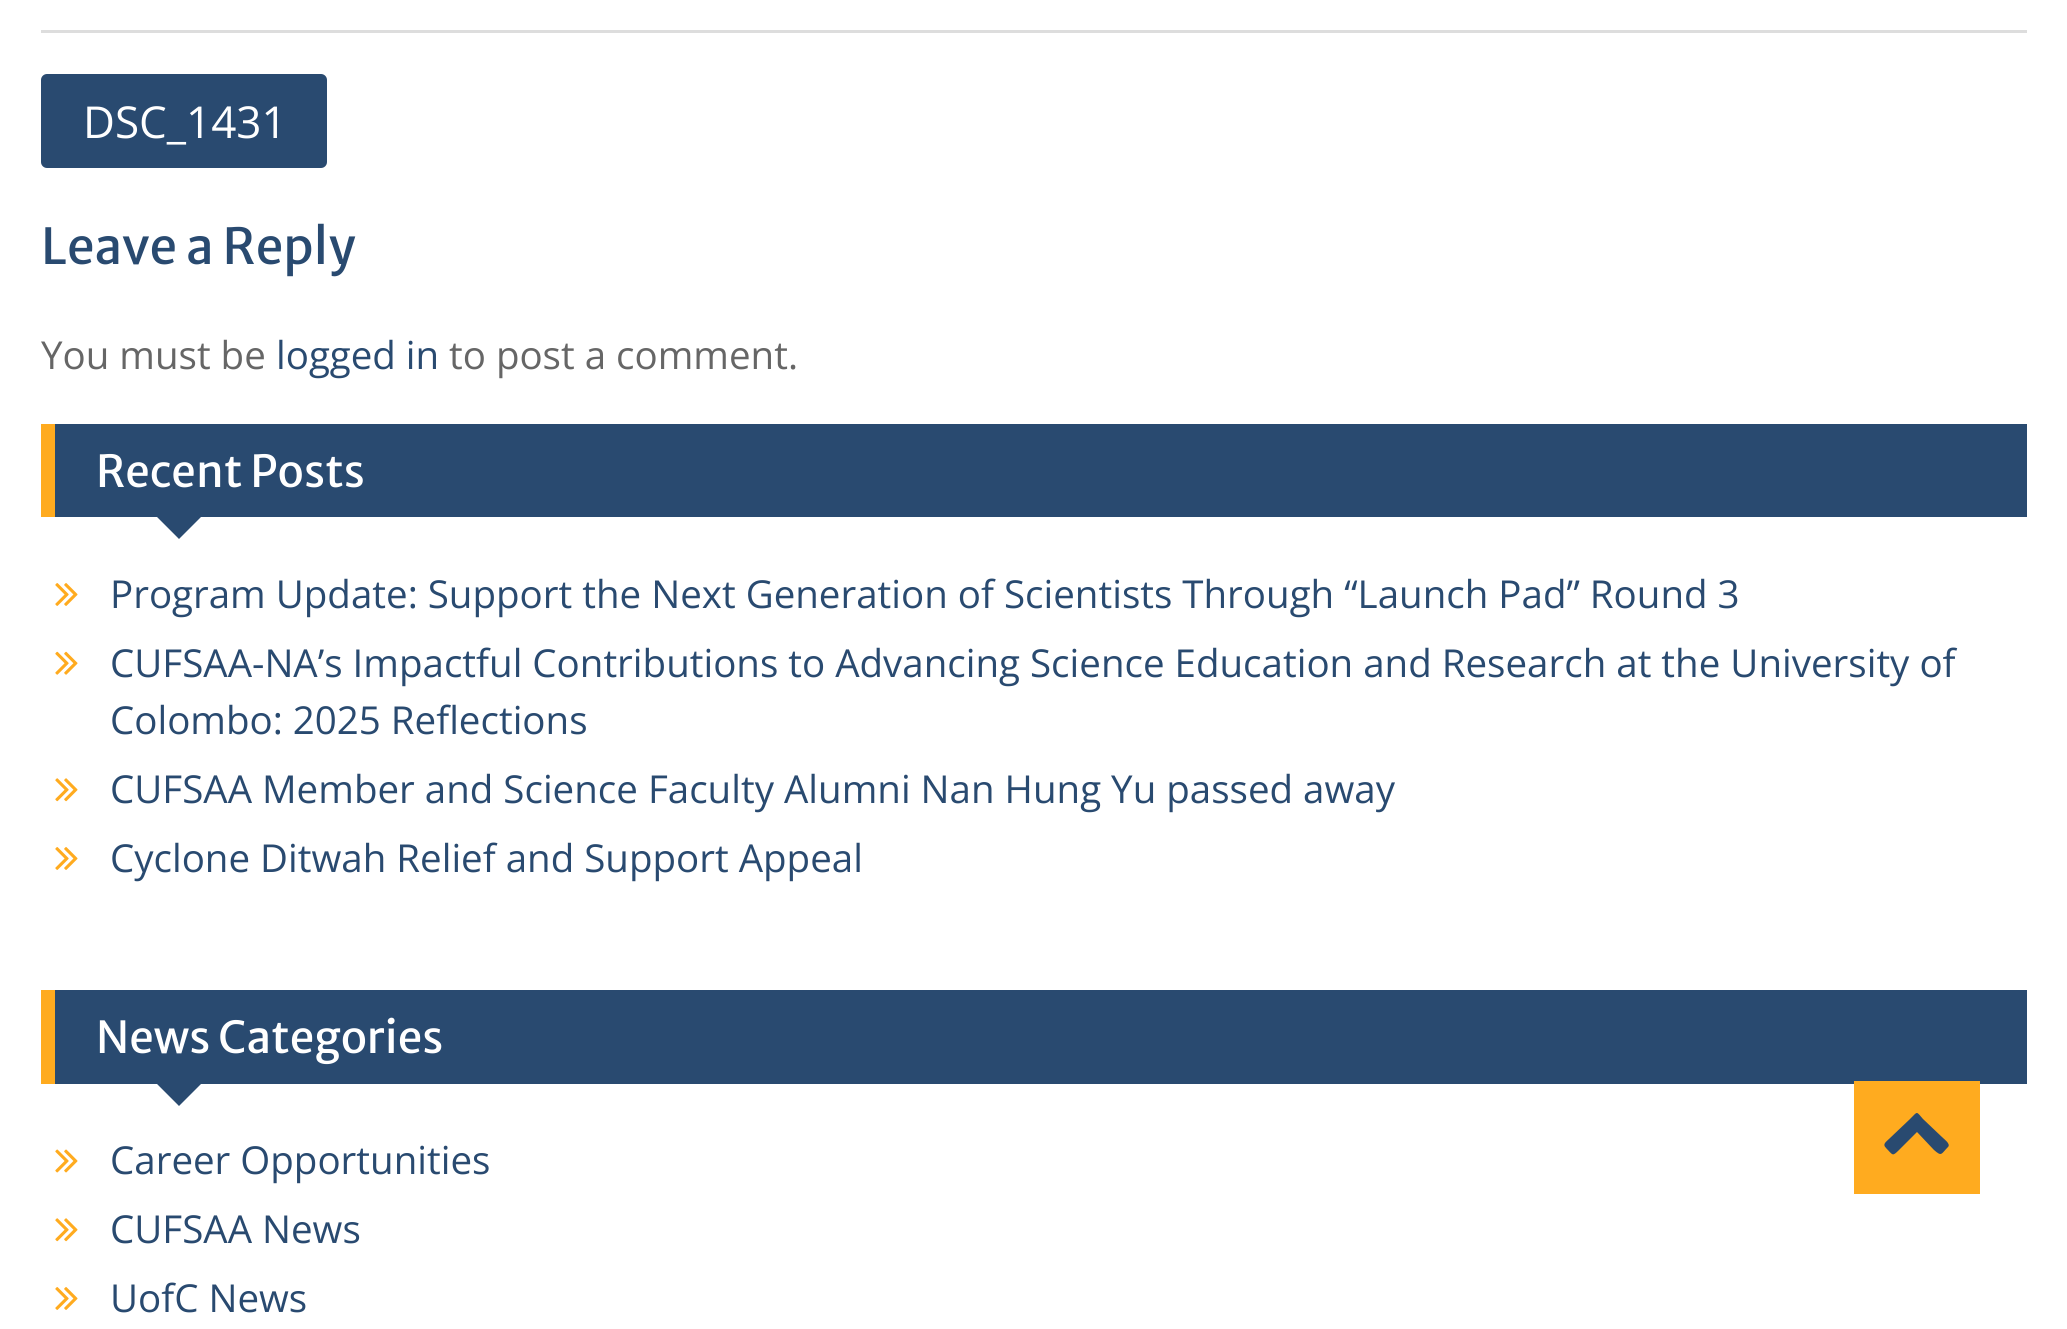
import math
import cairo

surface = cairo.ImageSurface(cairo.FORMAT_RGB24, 2067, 1329)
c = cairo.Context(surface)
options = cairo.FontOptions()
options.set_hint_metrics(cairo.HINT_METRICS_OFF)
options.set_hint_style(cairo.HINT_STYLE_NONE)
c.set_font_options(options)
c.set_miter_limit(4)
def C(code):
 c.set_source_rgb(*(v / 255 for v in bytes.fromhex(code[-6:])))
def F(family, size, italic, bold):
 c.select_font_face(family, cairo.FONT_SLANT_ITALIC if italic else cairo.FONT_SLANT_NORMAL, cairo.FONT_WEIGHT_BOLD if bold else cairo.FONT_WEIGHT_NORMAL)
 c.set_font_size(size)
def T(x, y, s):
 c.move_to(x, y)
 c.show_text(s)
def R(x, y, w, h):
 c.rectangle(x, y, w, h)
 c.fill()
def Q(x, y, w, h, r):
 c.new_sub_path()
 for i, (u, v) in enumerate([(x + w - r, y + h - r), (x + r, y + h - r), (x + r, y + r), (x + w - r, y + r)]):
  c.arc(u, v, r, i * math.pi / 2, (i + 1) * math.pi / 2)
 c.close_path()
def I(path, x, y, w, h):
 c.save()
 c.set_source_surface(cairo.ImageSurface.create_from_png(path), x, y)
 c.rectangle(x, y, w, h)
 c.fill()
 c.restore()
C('ffffff')
c.paint()
C('dddddd')
R(41,30,1986,3)
C('294a70')
Q(41,74,286,94,6)
c.fill()
F('Open Sans',44,0,0)
C('ffffff')
T(83,138,'DSC_1431')
F('Merriweather Sans',49.5,0,0)
C('294a70')
T(41,264,'Leave a Reply')
F('Open Sans',38.5,0,0)
C('666666')
T(41,369,'You must be')
C('294a70')
T(276,369,'logged in')
C('666666')
T(449,369,'to post a comment.')
C('294a70')
R(55,424,1972,93)
C('ffab1f')
R(41,424,14,93)
F('Merriweather Sans',44,0,0)
C('ffffff')
T(96,487,'Recent Posts')
C('294a70')
c.new_path()
c.move_to(154,514)
c.line_to(204,514)
c.line_to(179,539)
c.close_path()
c.fill()
I('1.png',55,583,23,23)
F('Open Sans',38.5,0,0)
T(110,608,'Program Update: Support the Next Generation of Scientists Through “Launch Pad” Round 3')
I('2.png',55,651,23,24)
T(110,677,'CUFSAA-NA’s Impactful Contributions to Advancing Science Education and Research at the University of')
T(110,734,'Colombo: 2025 Reflections')
I('3.png',55,778,23,24)
T(110,803,'CUFSAA Member and Science Faculty Alumni Nan Hung Yu passed away')
I('1.png',55,847,23,23)
T(110,872,'Cyclone Ditwah Relief and Support Appeal')
R(55,990,1972,94)
C('ffab1f')
R(41,990,14,94)
F('Merriweather Sans',44,0,0)
C('ffffff')
T(96,1053,'News Categories')
C('294a70')
c.new_path()
c.move_to(154,1081)
c.line_to(204,1081)
c.line_to(179,1106)
c.close_path()
c.fill()
I('4.png',55,1149,23,24)
F('Open Sans',38.5,0,0)
T(110,1174,'Career Opportunities')
I('3.png',55,1218,23,24)
T(110,1243,'CUFSAA News')
I('1.png',55,1287,23,23)
T(110,1312,'UofC News')
C('ffab1f')
R(1854,1081,126,113)
C('294a70')
c.new_path()
c.move_to(1948,1147)
c.curve_to(1941,1154,1942,1157,1934,1150)
c.line_to(1917,1132)
c.line_to(1899,1150)
c.curve_to(1892,1157,1893,1155,1886,1148)
c.curve_to(1882,1144,1886,1142,1890,1138)
c.line_to(1910,1119)
c.curve_to(1918,1111,1916,1111,1923,1119)
c.line_to(1943,1138)
c.curve_to(1944,1139,1951,1144,1948,1147)
c.close_path()
c.fill()
surface.write_to_png('o.png')
